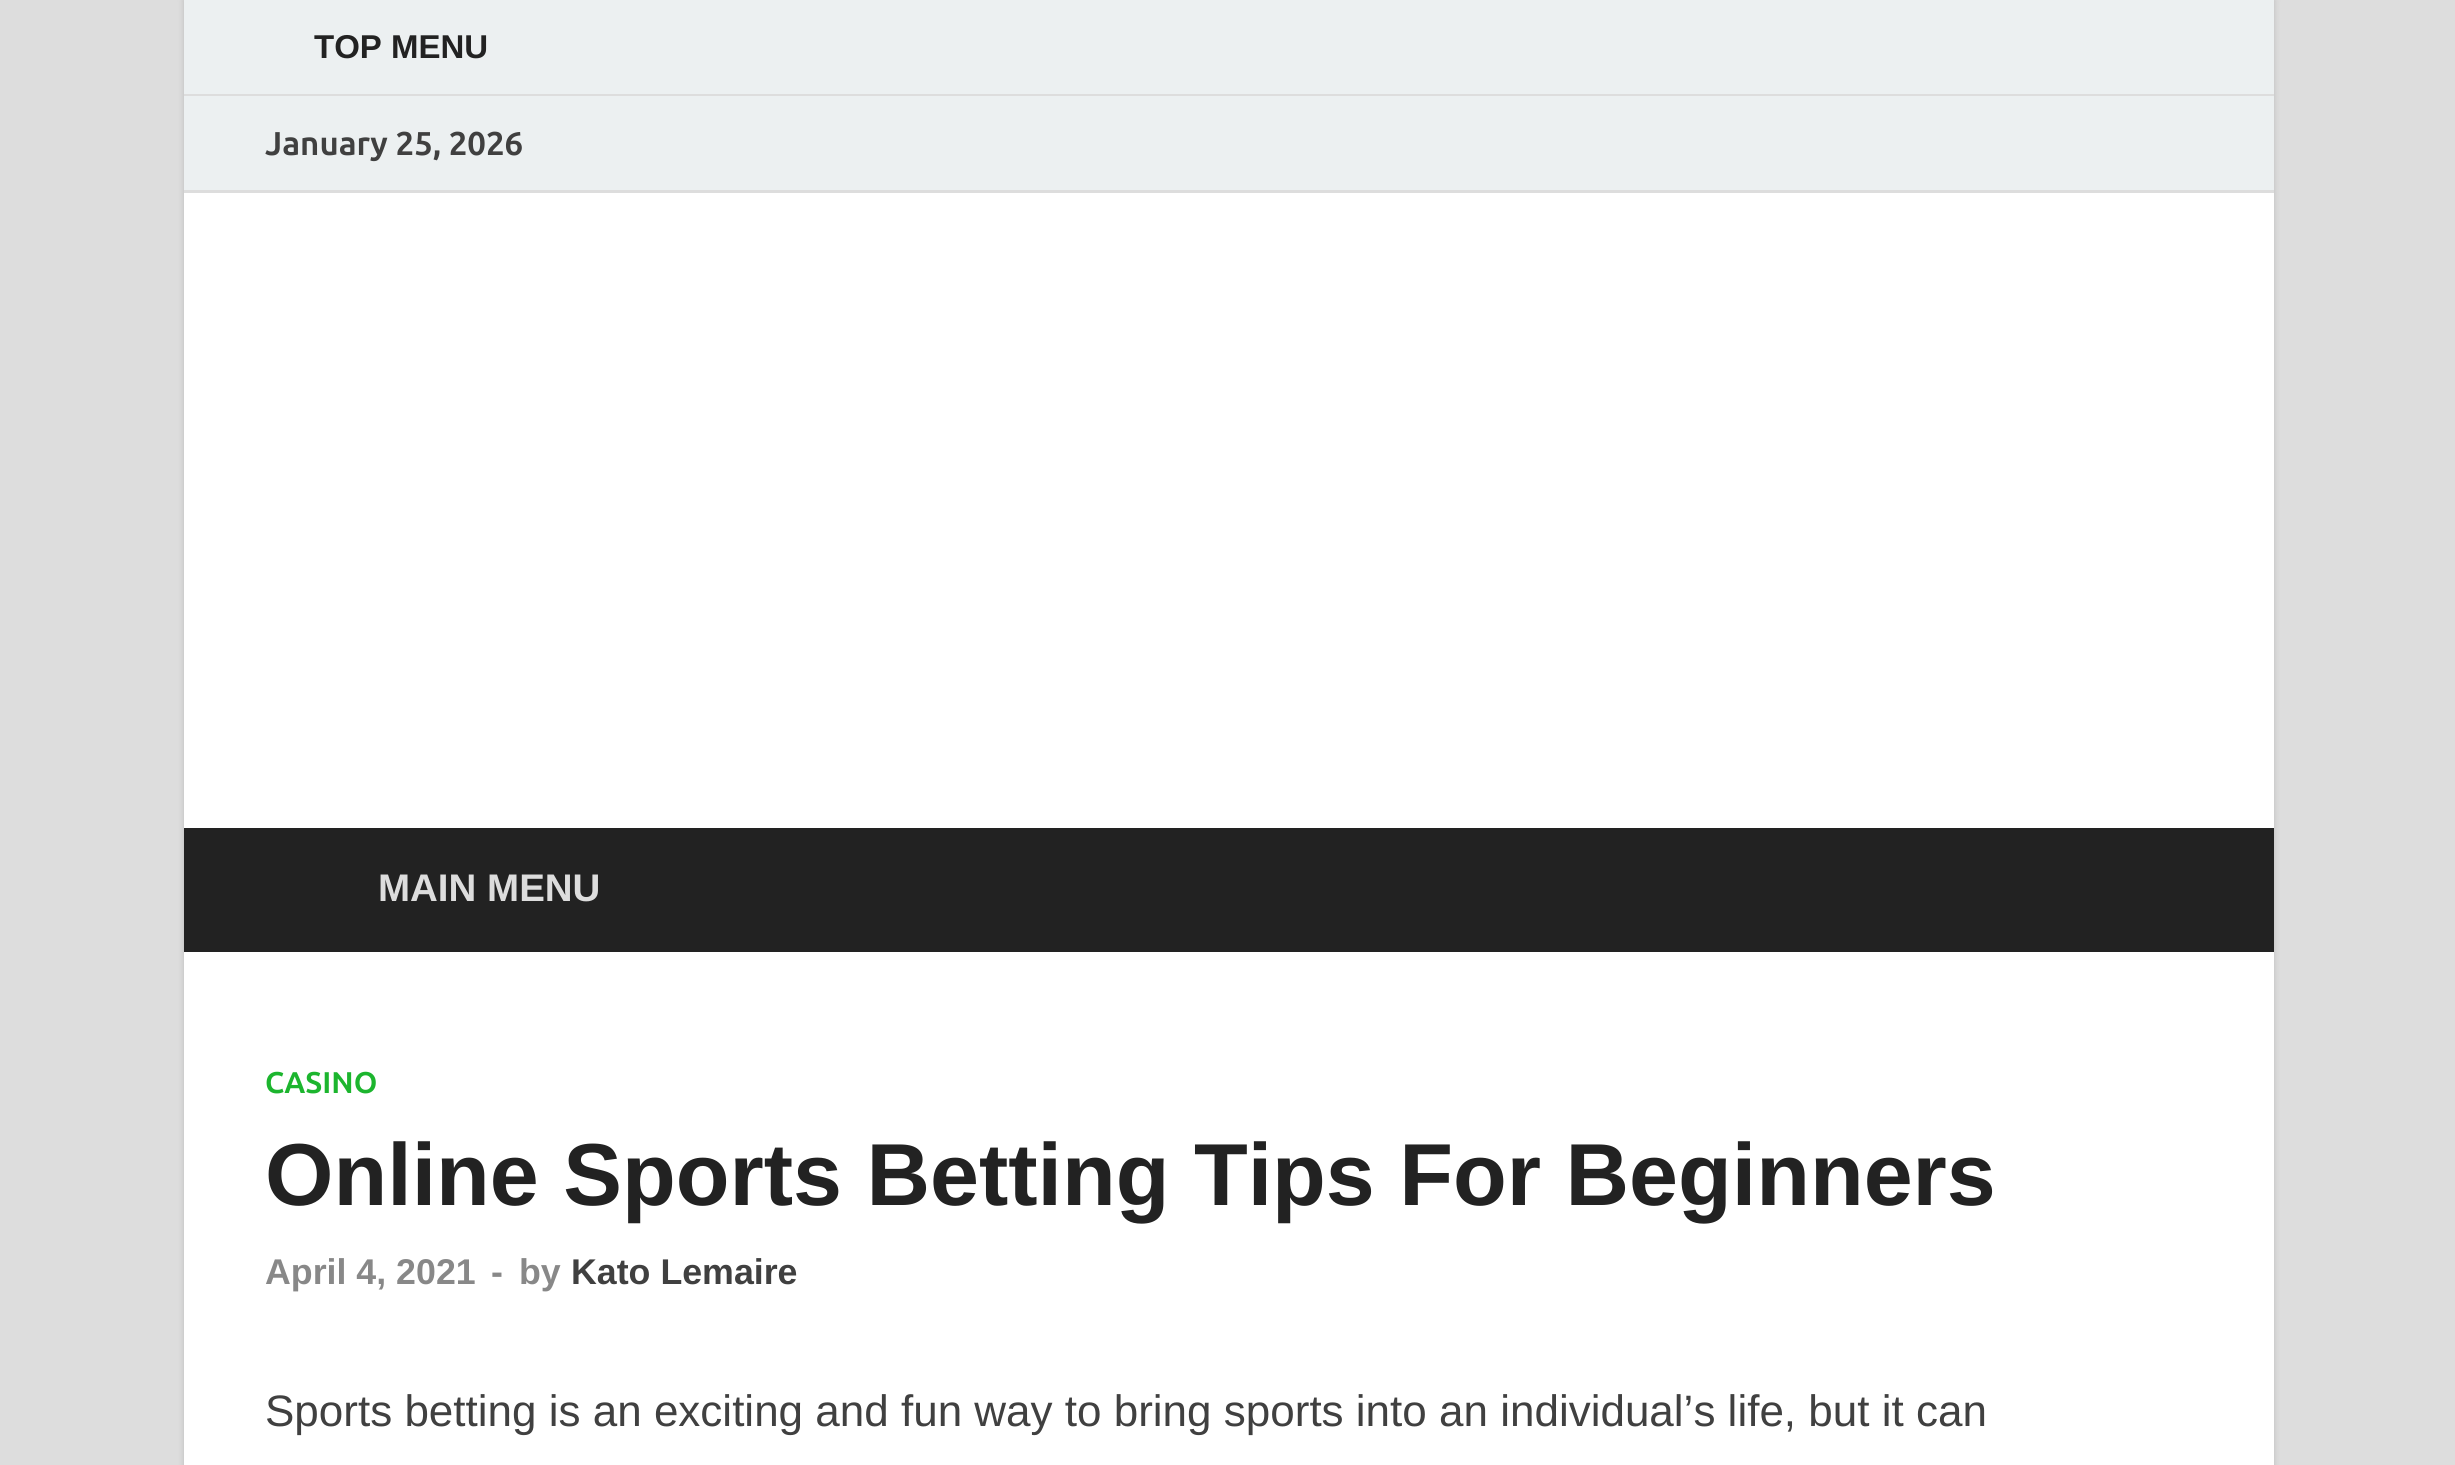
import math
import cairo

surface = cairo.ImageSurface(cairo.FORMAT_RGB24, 2455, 1465)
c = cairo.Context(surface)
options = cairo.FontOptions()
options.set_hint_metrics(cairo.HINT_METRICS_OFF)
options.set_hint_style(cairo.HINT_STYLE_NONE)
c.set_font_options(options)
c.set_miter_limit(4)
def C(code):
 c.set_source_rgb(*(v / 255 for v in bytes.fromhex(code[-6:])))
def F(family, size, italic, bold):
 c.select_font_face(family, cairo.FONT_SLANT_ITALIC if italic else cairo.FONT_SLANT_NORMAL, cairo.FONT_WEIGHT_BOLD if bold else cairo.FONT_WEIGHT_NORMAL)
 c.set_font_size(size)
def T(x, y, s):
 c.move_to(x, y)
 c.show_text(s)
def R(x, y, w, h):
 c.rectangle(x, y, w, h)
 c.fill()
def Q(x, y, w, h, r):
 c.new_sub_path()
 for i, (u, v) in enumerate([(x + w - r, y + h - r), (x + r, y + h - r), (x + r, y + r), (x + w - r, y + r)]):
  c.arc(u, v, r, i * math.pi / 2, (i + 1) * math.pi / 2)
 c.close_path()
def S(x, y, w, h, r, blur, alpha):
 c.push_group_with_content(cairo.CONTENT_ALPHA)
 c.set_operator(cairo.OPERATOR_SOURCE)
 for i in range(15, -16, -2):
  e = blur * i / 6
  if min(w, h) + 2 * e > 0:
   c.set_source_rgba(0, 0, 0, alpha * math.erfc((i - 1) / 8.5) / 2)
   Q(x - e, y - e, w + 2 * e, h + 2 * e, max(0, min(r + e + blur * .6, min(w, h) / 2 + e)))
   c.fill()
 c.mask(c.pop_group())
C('dddddd')
c.paint()
C('bbbbbb')
S(184,0,2090,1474,0,3,1)
C('ffffff')
R(184,193,2090,1272)
C('ecf0f1')
R(184,0,2090,94)
C('dddddd')
R(184,94,2090,2)
F('Liberation Sans',33,0,1)
C('222222')
T(314,58,'TOP MENU')
C('ecf0f1')
R(184,96,2090,94)
C('dddddd')
R(184,190,2090,3)
F('Ubuntu',33,0,1)
C('404040')
T(265,155,'January 25, 2026')
C('222222')
R(184,828,2090,124)
F('Liberation Sans',38.5,0,1)
C('dddddd')
T(378,901,'MAIN MENU')
F('Ubuntu',30,0,1)
C('1cb52e')
T(265,1093,'CASINO')
F('Liberation Sans',88,0,1)
C('222222')
T(265,1205,'Online Sports Betting Tips For Beginners')
F('Liberation Sans',35.75,0,1)
C('888888')
T(265,1284,'April 4, 2021')
T(491,1284,'-')
T(519,1284,'by')
C('404040')
T(571,1284,'Kato Lemaire')
F('Liberation Sans',44,0,0)
T(265,1426,'Sports betting is an exciting and fun way to bring sports into an individual’s life, but it can')
surface.write_to_png('o.png')
